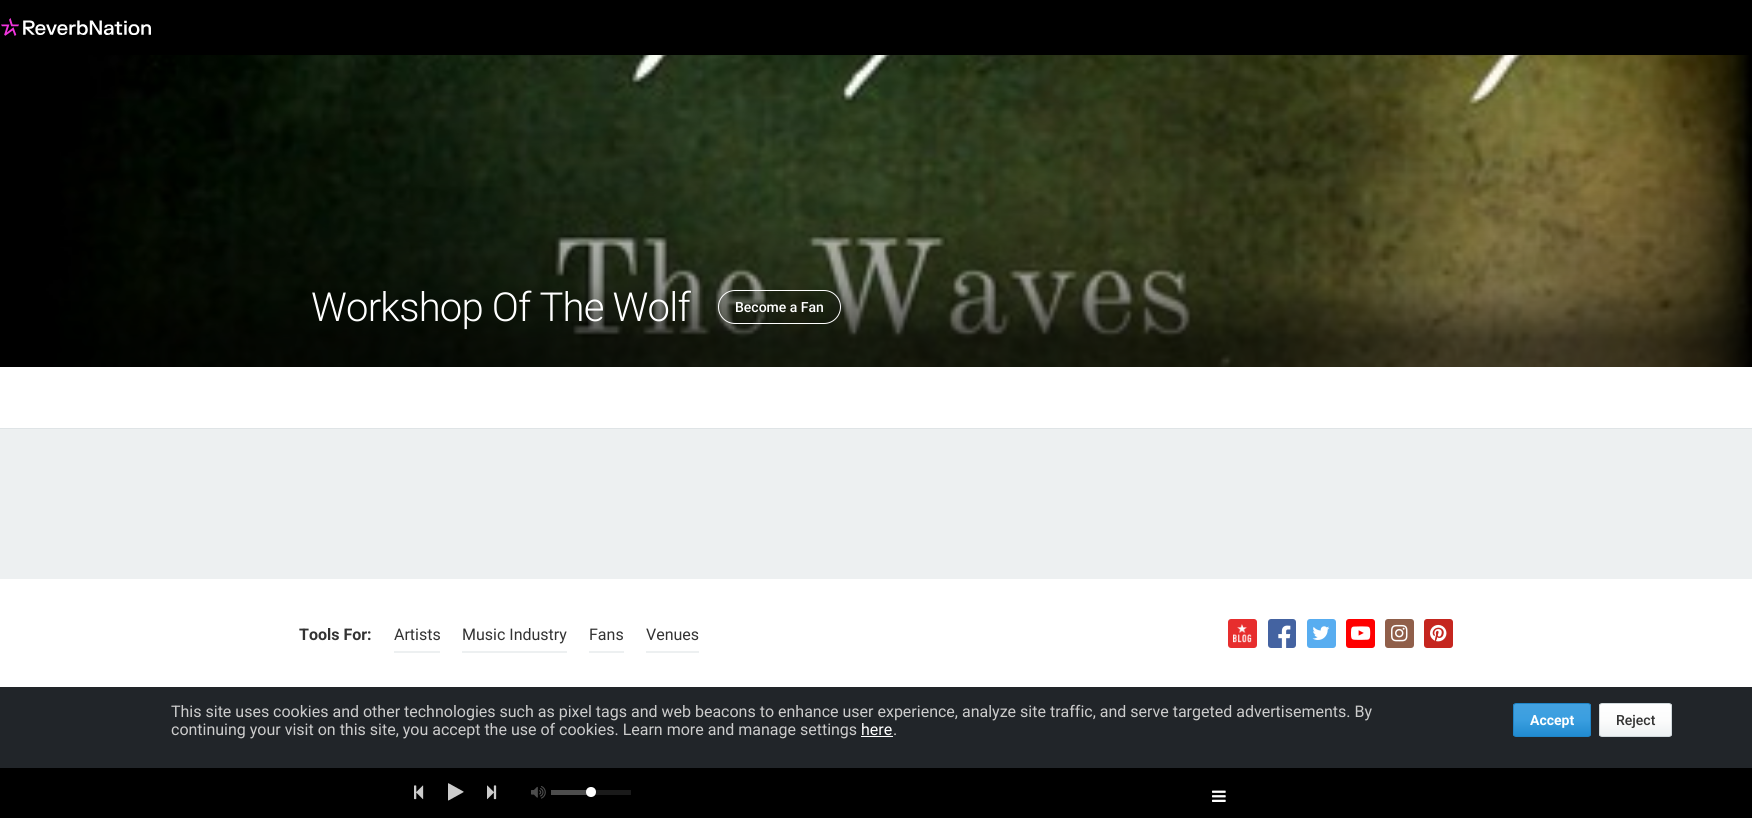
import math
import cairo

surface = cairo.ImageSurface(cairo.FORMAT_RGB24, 1752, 818)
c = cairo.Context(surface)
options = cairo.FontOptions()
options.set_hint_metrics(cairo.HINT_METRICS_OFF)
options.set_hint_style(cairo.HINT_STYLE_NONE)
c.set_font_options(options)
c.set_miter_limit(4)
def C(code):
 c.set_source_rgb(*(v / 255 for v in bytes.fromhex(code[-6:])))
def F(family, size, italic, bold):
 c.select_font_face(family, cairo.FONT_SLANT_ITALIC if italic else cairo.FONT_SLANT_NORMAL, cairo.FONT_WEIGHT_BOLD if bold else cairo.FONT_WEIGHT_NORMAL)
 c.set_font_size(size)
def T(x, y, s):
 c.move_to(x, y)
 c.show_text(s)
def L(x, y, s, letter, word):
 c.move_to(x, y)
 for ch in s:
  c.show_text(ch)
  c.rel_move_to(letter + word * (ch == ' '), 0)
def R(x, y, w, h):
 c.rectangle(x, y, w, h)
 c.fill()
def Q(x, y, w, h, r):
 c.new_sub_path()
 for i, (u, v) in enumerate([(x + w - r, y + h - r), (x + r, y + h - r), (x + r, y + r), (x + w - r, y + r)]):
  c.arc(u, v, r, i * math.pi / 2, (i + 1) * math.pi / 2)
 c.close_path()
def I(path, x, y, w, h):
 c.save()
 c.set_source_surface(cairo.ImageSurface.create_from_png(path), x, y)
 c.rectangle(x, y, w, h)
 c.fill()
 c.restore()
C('edf0f1')
c.paint()
C('000000')
R(0,0,1752,55)
I('1.png',1,18,150,18)
C('ffffff')
R(0,367,1752,61)
I('2.png',0,55,1752,312)
F('Roboto Light',40,0,0)
L(311,321,'Workshop Of The Wolf',-.8,0)
c.set_source_rgba(0,0,0,0.1)
Q(718.5,290.5,122,33,16.5)
c.fill_preserve()
C('ffffff')
c.set_line_width(1)
c.stroke()
F('Roboto Medium',14,0,0)
T(735,312,'Become a Fan')
C('dfe4e6')
R(0,428,1752,1)
C('ffffff')
R(0,579,1752,108)
F('Roboto',16,0,1)
C('333333')
T(299,640,'Tools For:')
C('edf0f1')
R(394,651,46,2)
F('Roboto',16,0,0)
C('333333')
T(394,640,'Artists')
C('edf0f1')
R(462,651,105,2)
C('333333')
T(462,640,'Music Industry')
C('edf0f1')
R(589,651,35,2)
C('333333')
T(589,640,'Fans')
C('edf0f1')
R(646,651,53,2)
C('333333')
T(646,640,'Venues')
C('e72e2e')
Q(1228,619,29,29,3)
c.fill()
I('3.png',1233,624,19,19)
C('4463a1')
Q(1268,619,28,29,3)
c.fill()
I('4.png',1278,625,13,23)
C('58adf0')
Q(1307,619,29,29,3)
c.fill()
I('5.png',1312,626,18,14)
C('ff0000')
Q(1346,619,29,29,3)
c.fill()
I('6.png',1351,626,20,14)
C('905f4a')
Q(1385,619,29,29,3)
c.fill()
I('7.png',1391,624,17,18)
C('c5261f')
Q(1424,619,29,29,3)
c.fill()
I('8.png',1430,624,17,18)
C('212529')
R(0,687,1752,81)
C('cccccc')
T(171,717,'This site uses cookies and other technologies such as pixel tags and web beacons to enhance user experience, analyze site traffic, and serve targeted advertisements. By')
T(171,735,'continuing your visit on this site, you accept the use of cookies. Learn more and manage settings')
C('ffffff')
T(861,735,'here')
R(861,736,32,1)
C('cccccc')
T(893,735,'.')
c.save()
Q(1513,703,78,34,3)
c.clip()
gradient = cairo.LinearGradient(1552,704,1552,736)
gradient.add_color_stop_rgba(0,0.263,0.635,0.882,1)
gradient.add_color_stop_rgba(.5,0.227,0.62,0.878,1)
gradient.add_color_stop_rgba(1,0.129,0.545,0.816,1)
c.set_source(gradient)
R(1513,704,78,32)
c.restore()
Q(1513.5,703.5,77,33,2.5)
C('1f85c8')
c.stroke()
F('Roboto',14,0,1)
C('ffffff')
T(1530,725,'Accept')
c.save()
Q(1599,703,73,34,3)
c.clip()
gradient = cairo.LinearGradient(1636,704,1636,736)
gradient.add_color_stop_rgba(0,1,1,1,1)
gradient.add_color_stop_rgba(.5,0.988,0.988,0.988,1)
gradient.add_color_stop_rgba(1,0.929,0.945,0.949,1)
c.set_source(gradient)
R(1599,704,73,32)
c.restore()
Q(1599.5,703.5,72,33,2.5)
C('d0d8db')
c.stroke()
F('Roboto Medium',14,0,0)
C('333333')
T(1616,725,'Reject')
C('000000')
R(0,768,1752,50)
I('9.png',414,785,10,15)
I('10.png',448,783,16,18)
I('11.png',487,785,10,15)
C('1a1a1a')
R(595,790,36,5)
I('12.png',531,786,15,13)
C('4d4d4d')
R(551,790,40,5)
C('ffffff')
c.arc(591,792,5,0,2 * math.pi)
c.fill()
I('13.png',1212,790,14,12)
surface.write_to_png('o.png')
